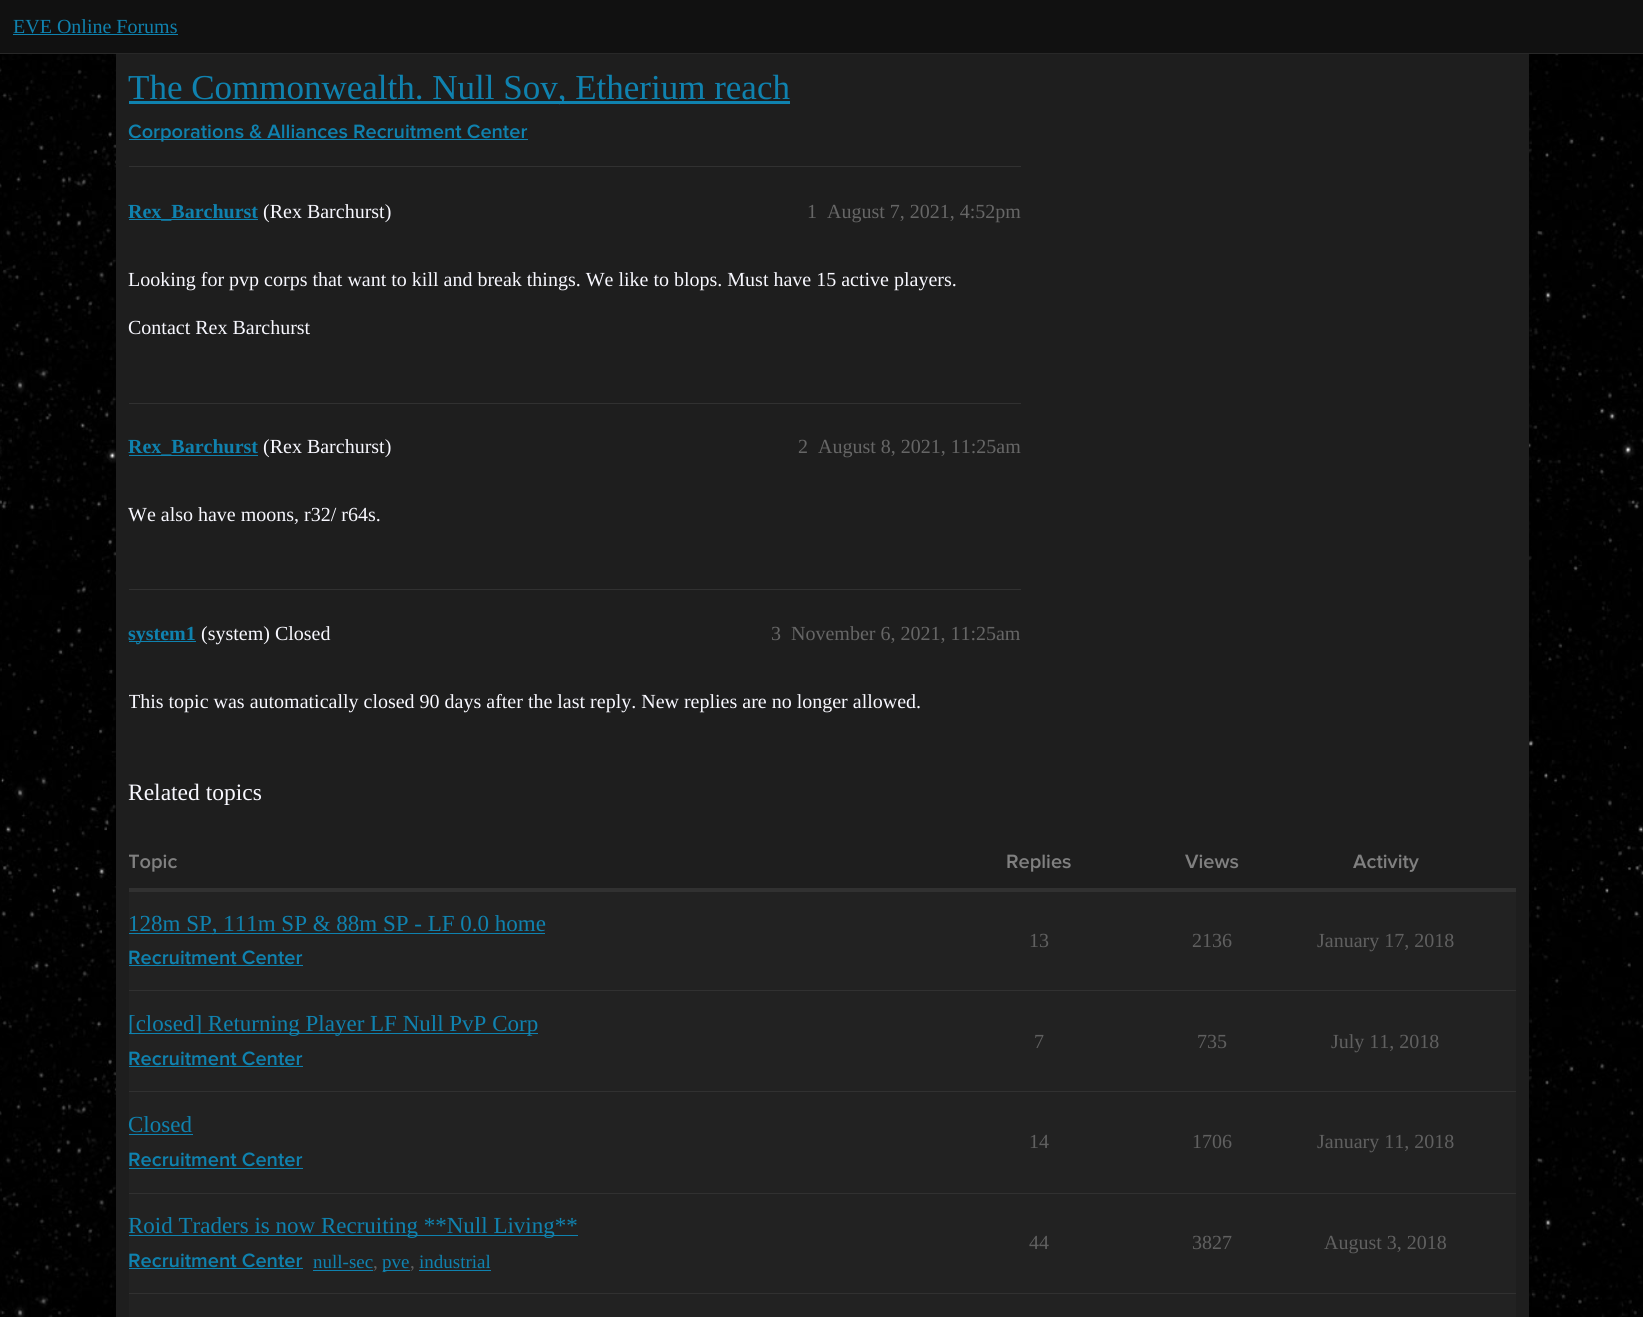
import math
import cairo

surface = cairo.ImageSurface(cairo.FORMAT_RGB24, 1643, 1317)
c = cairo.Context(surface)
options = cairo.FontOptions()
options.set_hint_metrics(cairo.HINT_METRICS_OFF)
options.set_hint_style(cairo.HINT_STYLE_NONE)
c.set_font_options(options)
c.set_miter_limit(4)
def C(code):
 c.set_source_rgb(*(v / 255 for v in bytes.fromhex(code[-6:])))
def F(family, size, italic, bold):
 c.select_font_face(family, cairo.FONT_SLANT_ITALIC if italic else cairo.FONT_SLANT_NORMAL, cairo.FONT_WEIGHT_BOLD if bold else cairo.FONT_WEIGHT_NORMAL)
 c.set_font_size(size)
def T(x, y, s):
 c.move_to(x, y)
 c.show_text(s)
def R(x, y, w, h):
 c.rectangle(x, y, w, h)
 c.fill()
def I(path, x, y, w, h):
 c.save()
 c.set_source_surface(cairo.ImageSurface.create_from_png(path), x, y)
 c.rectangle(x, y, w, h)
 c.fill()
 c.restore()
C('ffffff')
c.paint()
I('1.png',0,54,1643,1263)
C('111111')
R(0,0,1643,53)
C('282828')
R(0,53,1643,1)
F('Liberation Serif',20,0,0)
C('0f82af')
T(13,33,'EVE Online Forums')
R(13,34,165,1)
C('1e1e1e')
R(116,54,1413,1263)
C('0f82af')
R(129,101,661,3)
F('Liberation Serif',35,0,0)
T(128,99,'The Commonwealth. Null Sov, Etherium reach')
R(129,139,399,1)
F('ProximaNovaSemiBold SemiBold',20,0,0)
T(128,138,'Corporations & Alliances Recruitment Center')
C('313131')
R(129,166,892,1)
C('0f82af')
R(129,219,129,1)
F('Liberation Serif',20,0,1)
T(128,218,'Rex_Barchurst')
F('Liberation Serif',20,0,0)
C('f8f8ff')
T(263,218,'(Rex Barchurst)')
C('666666')
T(807,218,'1')
T(827,218,'August 7, 2021, 4:52pm')
C('f8f8ff')
T(128,286,'Looking for pvp corps that want to kill and break things. We like to blops. Must have 15 active players.')
T(128,334,'Contact Rex Barchurst')
C('313131')
R(129,403,892,1)
C('0f82af')
R(129,455,129,1)
F('Liberation Serif',20,0,1)
T(128,453,'Rex_Barchurst')
F('Liberation Serif',20,0,0)
C('f8f8ff')
T(263,453,'(Rex Barchurst)')
C('666666')
T(798,453,'2')
T(818,453,'August 8, 2021, 11:25am')
C('f8f8ff')
T(128,521,'We also have moons, r32/ r64s.')
C('313131')
R(129,589,892,1)
C('0f82af')
R(129,641,67,1)
F('Liberation Serif',20,0,1)
T(128,640,'system1')
F('Liberation Serif',20,0,0)
C('f8f8ff')
T(201,640,'(system) Closed')
C('666666')
T(771,640,'3')
T(791,640,'November 6, 2021, 11:25am')
c.save()
c.rectangle(129,669,892,67)
c.clip()
C('f8f8ff')
T(128,708,'This topic was automatically closed 90 days after the last reply. New replies are no longer allowed.')
c.restore()
F('Liberation Serif',23.5,0,0)
C('f8f8ff')
T(128,800,'Related topics')
c.save()
c.rectangle(129,849,1387,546)
c.clip()
F('ProximaNovaSemiBold SemiBold',20,0,0)
C('808080')
T(128,868,'Topic')
c.restore()
F('ProximaNovaSemiBold SemiBold',20,0,0)
C('808080')
T(1006,868,'Replies')
T(1185,868,'Views')
T(1353,868,'Activity')
C('313131')
R(129,888,1387,4)
C('222222')
R(129,892,1387,98)
C('313131')
R(129,990,1387,1)
C('0f82af')
R(129,933,416,1)
F('Liberation Serif',23,0,0)
T(128,931,'128m SP, 111m SP & 88m SP - LF 0.0 home')
F('ProximaNovaSemiBold SemiBold',20,0,0)
T(128,964,'Recruitment Center')
R(129,965,174,1)
F('Liberation Serif',20,0,0)
C('606060')
T(1029,947,'13')
T(1192,947,'2136')
T(1317,947,'January 17, 2018')
C('222222')
R(129,991,1387,202)
C('313131')
R(129,1091,1387,1)
C('0f82af')
R(129,1033,409,1)
F('Liberation Serif',23,0,0)
T(128,1031,'[closed] Returning Player LF Null PvP Corp')
F('ProximaNovaSemiBold SemiBold',20,0,0)
T(128,1065,'Recruitment Center')
R(129,1066,174,1)
F('Liberation Serif',20,0,0)
C('606060')
T(1034,1048,'7')
T(1197,1048,'735')
T(1331,1048,'July 11, 2018')
C('313131')
R(129,1193,1387,1)
F('Liberation Serif',23,0,0)
C('0f82af')
T(128,1132,'Closed')
R(129,1134,64,1)
F('ProximaNovaSemiBold SemiBold',20,0,0)
T(128,1166,'Recruitment Center')
R(129,1168,174,1)
F('Liberation Serif',20,0,0)
C('606060')
T(1029,1148,'14')
T(1192,1148,'1706')
T(1317,1148,'January 11, 2018')
C('222222')
R(129,1194,1387,99)
C('313131')
R(129,1293,1387,1)
C('0f82af')
R(129,1235,449,1)
F('Liberation Serif',23,0,0)
T(128,1233,'Roid Traders is now Recruiting **Null Living**')
F('ProximaNovaSemiBold SemiBold',20,0,0)
T(128,1267,'Recruitment Center')
R(129,1268,174,1)
F('Liberation Serif',19,0,0)
T(313,1268,'null-sec')
R(313,1270,60,1)
C('606060')
T(373,1268,',')
C('0f82af')
R(383,1270,27,1)
T(382,1268,'pve')
C('606060')
T(410,1268,',')
C('0f82af')
T(419,1268,'industrial')
R(419,1270,72,1)
F('Liberation Serif',20,0,0)
C('606060')
T(1029,1249,'44')
T(1192,1249,'3827')
T(1324,1249,'August 3, 2018')
C('222222')
R(129,1294,1387,23)
surface.write_to_png('o.png')
